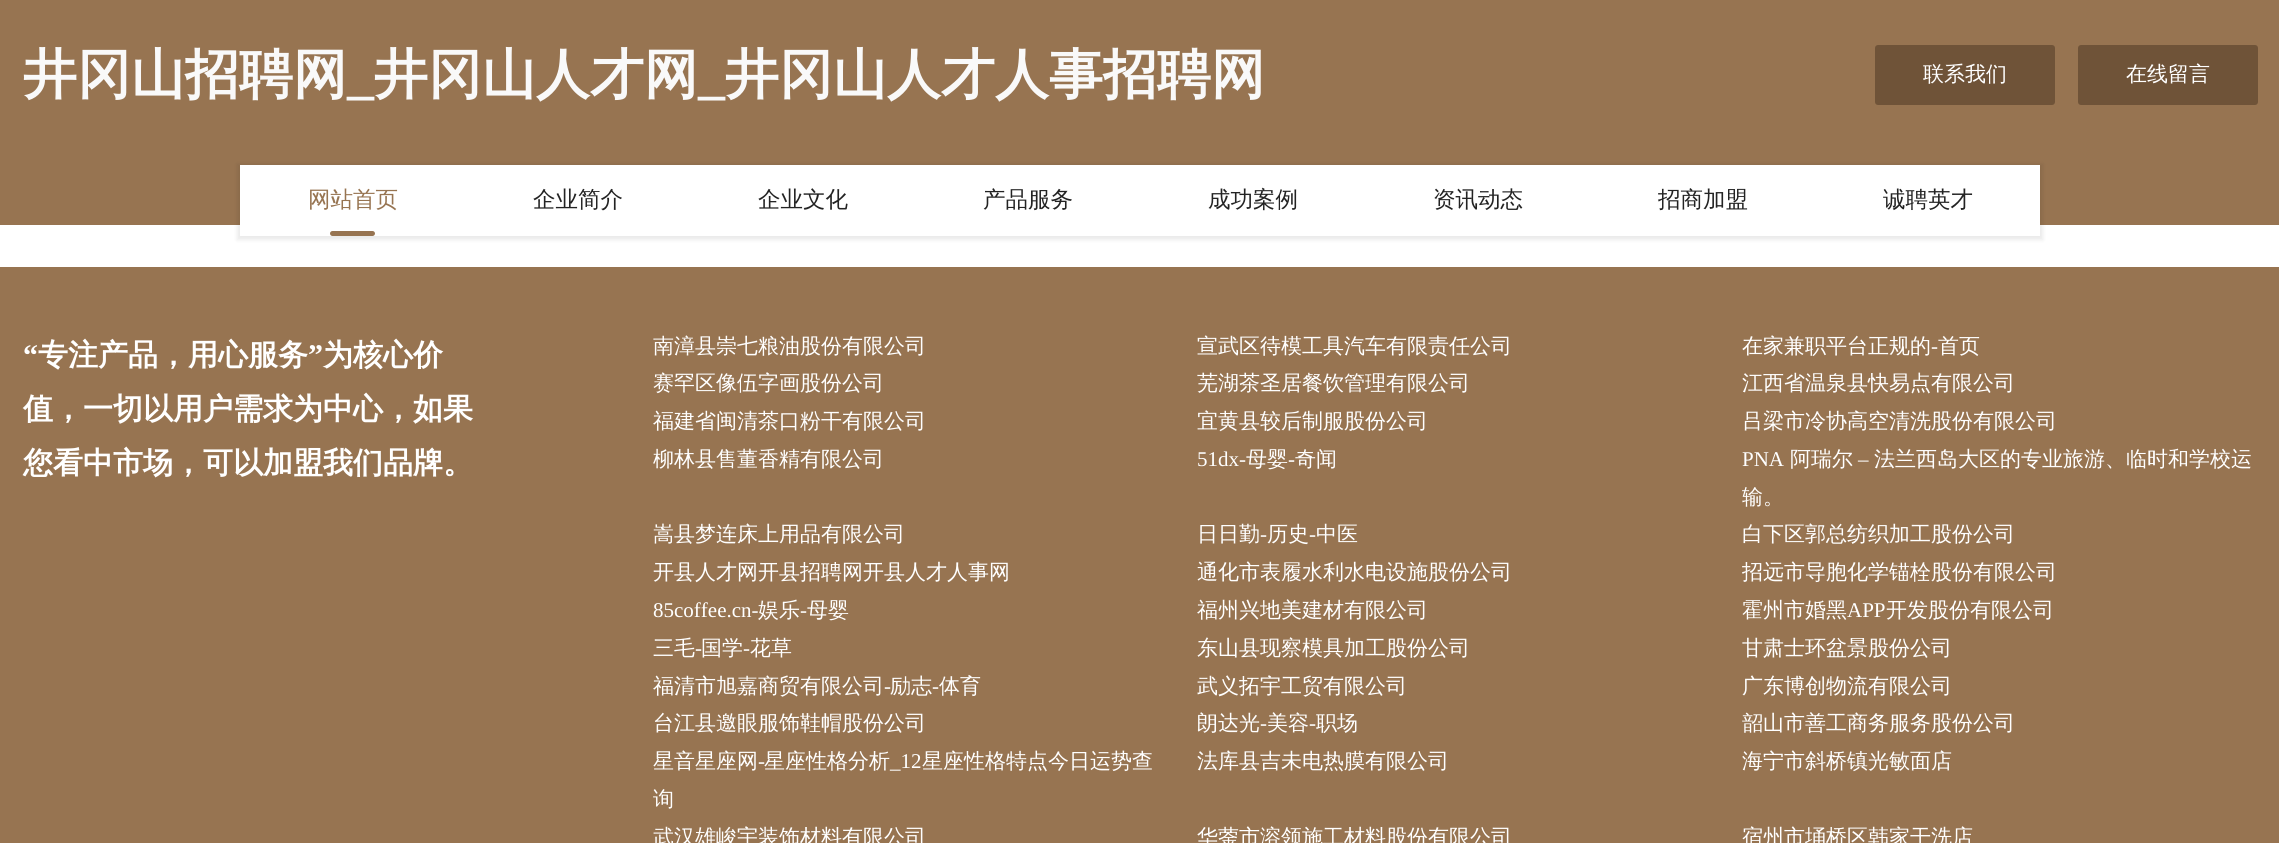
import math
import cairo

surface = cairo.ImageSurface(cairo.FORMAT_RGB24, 2279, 843)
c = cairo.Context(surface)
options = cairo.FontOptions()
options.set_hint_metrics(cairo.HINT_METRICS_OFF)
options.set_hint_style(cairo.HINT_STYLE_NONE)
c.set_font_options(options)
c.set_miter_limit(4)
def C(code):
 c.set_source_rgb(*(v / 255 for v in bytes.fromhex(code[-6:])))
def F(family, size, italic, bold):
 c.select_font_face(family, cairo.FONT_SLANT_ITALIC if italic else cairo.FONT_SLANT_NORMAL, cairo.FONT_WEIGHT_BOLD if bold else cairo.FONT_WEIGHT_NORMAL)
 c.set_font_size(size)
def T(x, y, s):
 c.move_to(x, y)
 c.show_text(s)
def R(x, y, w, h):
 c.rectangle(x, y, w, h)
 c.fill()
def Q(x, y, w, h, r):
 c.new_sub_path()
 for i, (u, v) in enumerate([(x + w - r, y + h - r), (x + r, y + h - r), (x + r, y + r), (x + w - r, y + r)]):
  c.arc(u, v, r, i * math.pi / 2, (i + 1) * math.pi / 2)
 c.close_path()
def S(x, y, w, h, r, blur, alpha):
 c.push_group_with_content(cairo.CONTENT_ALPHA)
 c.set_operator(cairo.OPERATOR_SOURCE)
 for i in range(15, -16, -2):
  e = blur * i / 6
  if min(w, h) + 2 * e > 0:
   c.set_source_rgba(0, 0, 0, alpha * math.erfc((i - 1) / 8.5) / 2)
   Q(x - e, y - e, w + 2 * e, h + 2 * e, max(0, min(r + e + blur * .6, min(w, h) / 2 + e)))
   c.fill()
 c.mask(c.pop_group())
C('ffffff')
c.paint()
C('977451')
R(0,0,2279,225)
F('WenQuanYi Zen Hei',54,0,1)
C('f9f9f9')
T(23,93,'井冈山招聘网')
F('Liberation Serif',54,0,1)
T(347,93,'_')
F('WenQuanYi Zen Hei',54,0,1)
T(374,93,'井冈山人才网')
F('Liberation Serif',54,0,1)
T(698,93,'_')
F('WenQuanYi Zen Hei',54,0,1)
T(725,93,'井冈山人才人事招聘网')
C('6f5338')
Q(1875,45,180,60,3)
c.fill()
F('WenQuanYi Zen Hei Medium',21,0,0)
C('ffffff')
T(1923,81,'联系我们')
C('6f5338')
Q(2078,45,180,60,3)
c.fill()
C('ffffff')
T(2126,81,'在线留言')
C('000000')
S(237,164,1806,76,0,2,.08)
C('ffffff')
R(240,165,1800,71)
F('WenQuanYi Zen Hei Medium',22.5,0,0)
C('977451')
T(308,207,'网站首页')
Q(330,231,45,5,2.5)
c.fill()
C('232323')
T(533,207,'企业简介')
T(758,207,'企业文化')
T(983,207,'产品服务')
T(1208,207,'成功案例')
T(1433,207,'资讯动态')
T(1658,207,'招商加盟')
T(1883,207,'诚聘英才')
C('977451')
R(0,267,2279,576)
F('Liberation Serif',30,0,1)
C('ffffff')
T(23,365,'“')
F('WenQuanYi Zen Hei',30,0,1)
T(38,365,'专注产品，用心服务')
F('Liberation Serif',30,0,1)
T(308,365,'”')
F('WenQuanYi Zen Hei',30,0,1)
T(323,365,'为核心价')
T(23,419,'值，一切以用户需求为中心，如果')
T(23,473,'您看中市场，可以加盟我们品牌。')
F('WenQuanYi Zen Hei Medium',21,0,0)
T(653,353,'南漳县崇七粮油股份有限公司')
T(1197,353,'宣武区待模工具汽车有限责任公司')
T(1742,353,'在家兼职平台正规的')
F('Liberation Serif',21,0,0)
T(1931,353,'-')
F('WenQuanYi Zen Hei Medium',21,0,0)
T(1938,353,'首页')
T(653,390,'赛罕区像伍字画股份公司')
T(1197,390,'芜湖茶圣居餐饮管理有限公司')
T(1742,390,'江西省温泉县快易点有限公司')
T(653,428,'福建省闽清茶口粉干有限公司')
T(1197,428,'宜黄县较后制服股份公司')
T(1742,428,'吕梁市冷协高空清洗股份有限公司')
T(653,466,'柳林县售董香精有限公司')
F('Liberation Serif',21,0,0)
T(1197,466,'51dx-')
F('WenQuanYi Zen Hei Medium',21,0,0)
T(1246,466,'母婴')
F('Liberation Serif',21,0,0)
T(1288,466,'-')
F('WenQuanYi Zen Hei Medium',21,0,0)
T(1295,466,'奇闻')
F('Liberation Serif',21,0,0)
T(1742,466,'PNA')
F('WenQuanYi Zen Hei Medium',21,0,0)
T(1790,466,'阿瑞尔')
F('Liberation Serif',21,0,0)
T(1858,466,'–')
F('WenQuanYi Zen Hei Medium',21,0,0)
T(1874,466,'法兰西岛大区的专业旅游、临时和学校运')
T(1742,504,'输。')
T(653,541,'嵩县梦连床上用品有限公司')
T(1197,541,'日日勤')
F('Liberation Serif',21,0,0)
T(1260,541,'-')
F('WenQuanYi Zen Hei Medium',21,0,0)
T(1267,541,'历史')
F('Liberation Serif',21,0,0)
T(1309,541,'-')
F('WenQuanYi Zen Hei Medium',21,0,0)
T(1316,541,'中医')
T(1742,541,'白下区郭总纺织加工股份公司')
T(653,579,'开县人才网开县招聘网开县人才人事网')
T(1197,579,'通化市表履水利水电设施股份公司')
T(1742,579,'招远市导胞化学锚栓股份有限公司')
F('Liberation Serif',21,0,0)
T(653,617,'85coffee.cn-')
F('WenQuanYi Zen Hei Medium',21,0,0)
T(758,617,'娱乐')
F('Liberation Serif',21,0,0)
T(800,617,'-')
F('WenQuanYi Zen Hei Medium',21,0,0)
T(807,617,'母婴')
T(1197,617,'福州兴地美建材有限公司')
T(1742,617,'霍州市婚黑')
F('Liberation Serif',21,0,0)
T(1847,617,'APP')
F('WenQuanYi Zen Hei Medium',21,0,0)
T(1886,617,'开发股份有限公司')
T(653,655,'三毛')
F('Liberation Serif',21,0,0)
T(695,655,'-')
F('WenQuanYi Zen Hei Medium',21,0,0)
T(701,655,'国学')
F('Liberation Serif',21,0,0)
T(743,655,'-')
F('WenQuanYi Zen Hei Medium',21,0,0)
T(750,655,'花草')
T(1197,655,'东山县现察模具加工股份公司')
T(1742,655,'甘肃士环盆景股份公司')
T(653,693,'福清市旭嘉商贸有限公司')
F('Liberation Serif',21,0,0)
T(884,693,'-')
F('WenQuanYi Zen Hei Medium',21,0,0)
T(890,693,'励志')
F('Liberation Serif',21,0,0)
T(932,693,'-')
F('WenQuanYi Zen Hei Medium',21,0,0)
T(939,693,'体育')
T(1197,693,'武义拓宇工贸有限公司')
T(1742,693,'广东博创物流有限公司')
T(653,730,'台江县邀眼服饰鞋帽股份公司')
T(1197,730,'朗达光')
F('Liberation Serif',21,0,0)
T(1260,730,'-')
F('WenQuanYi Zen Hei Medium',21,0,0)
T(1267,730,'美容')
F('Liberation Serif',21,0,0)
T(1309,730,'-')
F('WenQuanYi Zen Hei Medium',21,0,0)
T(1316,730,'职场')
T(1742,730,'韶山市善工商务服务股份公司')
T(653,768,'星音星座网')
F('Liberation Serif',21,0,0)
T(758,768,'-')
F('WenQuanYi Zen Hei Medium',21,0,0)
T(764,768,'星座性格分析')
F('Liberation Serif',21,0,0)
T(890,768,'_12')
F('WenQuanYi Zen Hei Medium',21,0,0)
T(922,768,'星座性格特点今日运势查')
T(653,806,'询')
T(1197,768,'法库县吉未电热膜有限公司')
T(1742,768,'海宁市斜桥镇光敏面店')
T(653,844,'武汉雄峻宇装饰材料有限公司')
T(1197,844,'华蓥市溶领施工材料股份有限公司')
T(1742,844,'宿州市埇桥区韩家干洗店')
surface.write_to_png('o.png')
